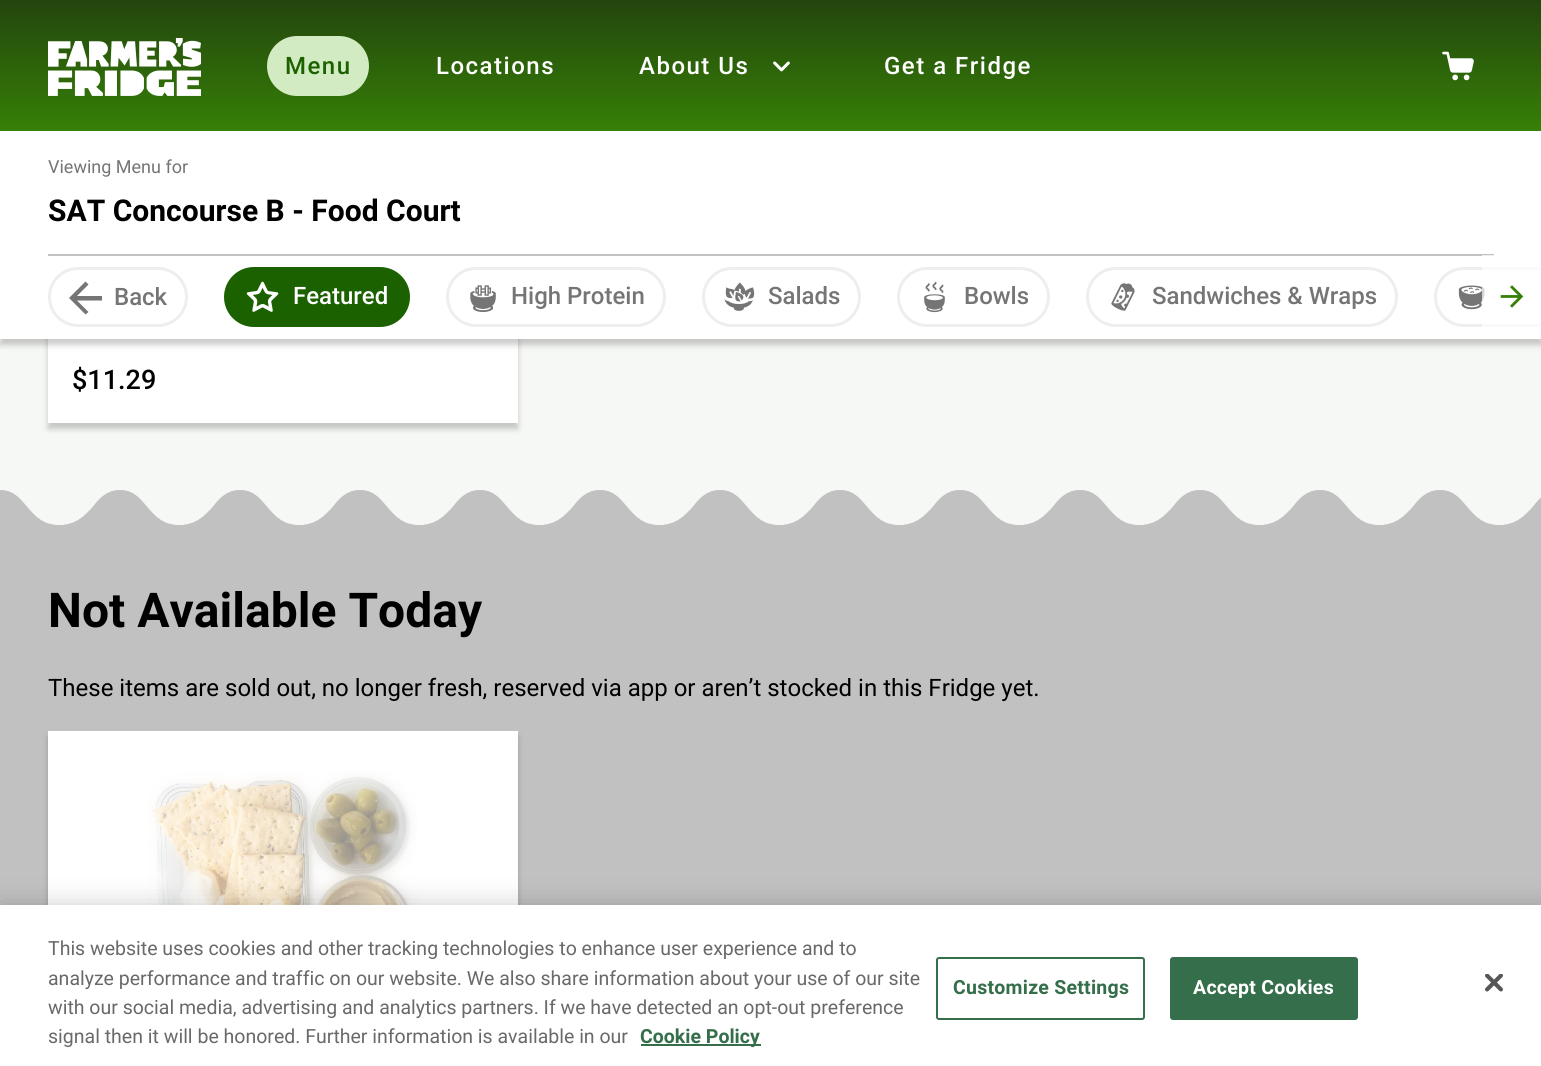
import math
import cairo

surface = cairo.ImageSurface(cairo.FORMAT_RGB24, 1541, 1066)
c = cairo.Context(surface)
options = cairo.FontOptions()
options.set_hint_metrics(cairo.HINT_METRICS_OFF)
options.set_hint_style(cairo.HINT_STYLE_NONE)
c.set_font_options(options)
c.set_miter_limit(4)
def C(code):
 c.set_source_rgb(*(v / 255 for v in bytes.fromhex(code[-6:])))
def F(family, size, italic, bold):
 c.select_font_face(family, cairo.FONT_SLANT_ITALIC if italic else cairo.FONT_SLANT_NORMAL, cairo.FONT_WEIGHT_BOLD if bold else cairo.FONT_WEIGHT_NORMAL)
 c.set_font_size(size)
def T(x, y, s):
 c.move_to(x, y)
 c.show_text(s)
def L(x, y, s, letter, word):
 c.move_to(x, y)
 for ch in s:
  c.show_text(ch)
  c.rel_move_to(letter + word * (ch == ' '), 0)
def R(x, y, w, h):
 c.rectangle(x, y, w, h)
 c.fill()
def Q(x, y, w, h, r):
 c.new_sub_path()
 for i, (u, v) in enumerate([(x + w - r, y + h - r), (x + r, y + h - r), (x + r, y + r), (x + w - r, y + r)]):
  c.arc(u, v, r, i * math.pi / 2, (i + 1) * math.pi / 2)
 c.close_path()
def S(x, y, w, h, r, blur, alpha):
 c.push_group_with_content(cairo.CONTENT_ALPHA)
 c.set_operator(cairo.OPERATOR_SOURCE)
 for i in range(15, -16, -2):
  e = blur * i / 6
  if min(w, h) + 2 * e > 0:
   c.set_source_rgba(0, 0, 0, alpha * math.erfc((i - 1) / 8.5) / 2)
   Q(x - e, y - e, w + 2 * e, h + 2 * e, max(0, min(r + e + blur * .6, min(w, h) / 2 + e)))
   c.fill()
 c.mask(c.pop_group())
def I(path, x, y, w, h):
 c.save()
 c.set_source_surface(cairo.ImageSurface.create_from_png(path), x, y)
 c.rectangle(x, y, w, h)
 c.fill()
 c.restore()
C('f6f8f5')
c.paint()
C('000000')
S(48,-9,470,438,0,3,.2)
C('ffffff')
R(48,339,470,84)
C('000000')
S(0,135,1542,210,0,3,.2)
gradient = cairo.LinearGradient(771,0,771,131)
gradient.add_color_stop_rgba(0,0.137,0.271,0.051,1)
gradient.add_color_stop_rgba(1,0.212,0.502,0.027,1)
c.set_source(gradient)
R(0,0,1541,131)
I('1.png',48,38,153,58)
C('d3ebc2')
Q(267,36,102,60,30)
c.fill()
F('Roboto Medium',24,0,0)
C('1b6100')
L(285,74,'Menu',1.5,0)
C('ffffff')
L(436,74,'Locations',1.5,0)
L(639,74,'About Us',1.5,0)
I('2.png',773,61,17,11)
L(884,74,'Get a Fridge',1.5,0)
I('3.png',1442,51,32,30)
R(0,131,1541,208)
F('Roboto',18,0,0)
C('757575')
T(48,173,'Viewing Menu for')
F('Roboto',30,0,1)
C('000000')
T(48,221,'SAT Concourse B - Food Court')
C('c2c2c2')
R(48,254,1446,2)
Q(1435.5,268.5,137,57,28.5)
C('eeeeee')
c.set_line_width(3)
c.stroke()
I('10.png',1458,285,27,25)
c.set_source_rgba(1,1,1,0.7)
R(1482,255,59,72)
I('4.png',1500,285,24,23)
Q(49.5,268.5,137,57,28.5)
C('eeeeee')
c.stroke()
C('757575')
c.new_path()
c.move_to(102,296)
c.line_to(77,296)
c.line_to(88.5,284.5)
c.line_to(85.5,281.5)
c.line_to(69,298)
c.line_to(85.5,314.5)
c.line_to(88.5,312)
c.line_to(77,300.5)
c.line_to(102,300.5)
c.close_path()
c.fill()
F('Roboto Medium',24,0,0)
T(114,305,'Back')
C('1b6100')
Q(225.5,268.5,183,57,28.5)
c.fill_preserve()
c.stroke()
I('5.png',246,281,33,31)
C('ffffff')
T(293,304,'Featured')
Q(447.5,268.5,217,57,28.5)
C('eeeeee')
c.stroke()
I('6.png',470,285,26,28)
C('757575')
T(511,304,'High Protein')
Q(703.5,268.5,156,57,28.5)
C('eeeeee')
c.stroke()
I('7.png',724,282,31,29)
C('757575')
T(768,304,'Salads')
Q(898.5,268.5,150,57,28.5)
C('eeeeee')
c.stroke()
I('8.png',924,281,21,32)
C('757575')
T(964,304,'Bowls')
Q(1087.5,268.5,309,57,28.5)
C('eeeeee')
c.stroke()
I('9.png',1111,283,24,28)
C('757575')
T(1152,304,'Sandwiches & Wraps')
F('Roboto Medium',27,0,0)
C('000000')
T(72,389,'$11.29')
C('c1c1c1')
R(0,490,1541,415)
I('11.png',0,483,1541,42)
F('Roboto',48,0,1)
C('000000')
T(48,627,'Not Available Today')
F('Roboto',24,0,0)
T(48,696,'These items are sold out, no longer fresh, reserved via app or aren’t stocked in this Fridge yet.')
C('000000')
S(48,737,470,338,0,3,.2)
C('ffffff')
R(48,731,470,174)
I('12.png',148,771,270,134)
I('13.png',151,777,259,128)
C('000000')
S(0,905,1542,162,0,13.5,.2)
C('ffffff')
R(0,905,1541,161)
F('Roboto',19.5,0,0)
C('696969')
T(48,955,'This website uses cookies and other tracking technologies to enhance user experience and to')
T(48,985,'analyze performance and traffic on our website. We also share information about your use of our site')
T(48,1014,'with our social media, advertising and analytics partners. If we have detected an opt-out preference')
T(48,1043,'signal then it will be honored. Further information is available in our')
C('346e4a')
R(641,1044,120,2)
F('Roboto',19.5,0,1)
T(640,1043,'Cookie Policy')
Q(937,958,207,61,2)
c.set_line_width(2)
c.stroke()
L(953,994,'Customize Settings',.25,0)
Q(1171,958,186,61,2)
c.fill_preserve()
c.stroke()
C('ffffff')
L(1193,994,'Accept Cookies',.25,0)
I('14.png',1485,974,18,18)
surface.write_to_png('o.png')
